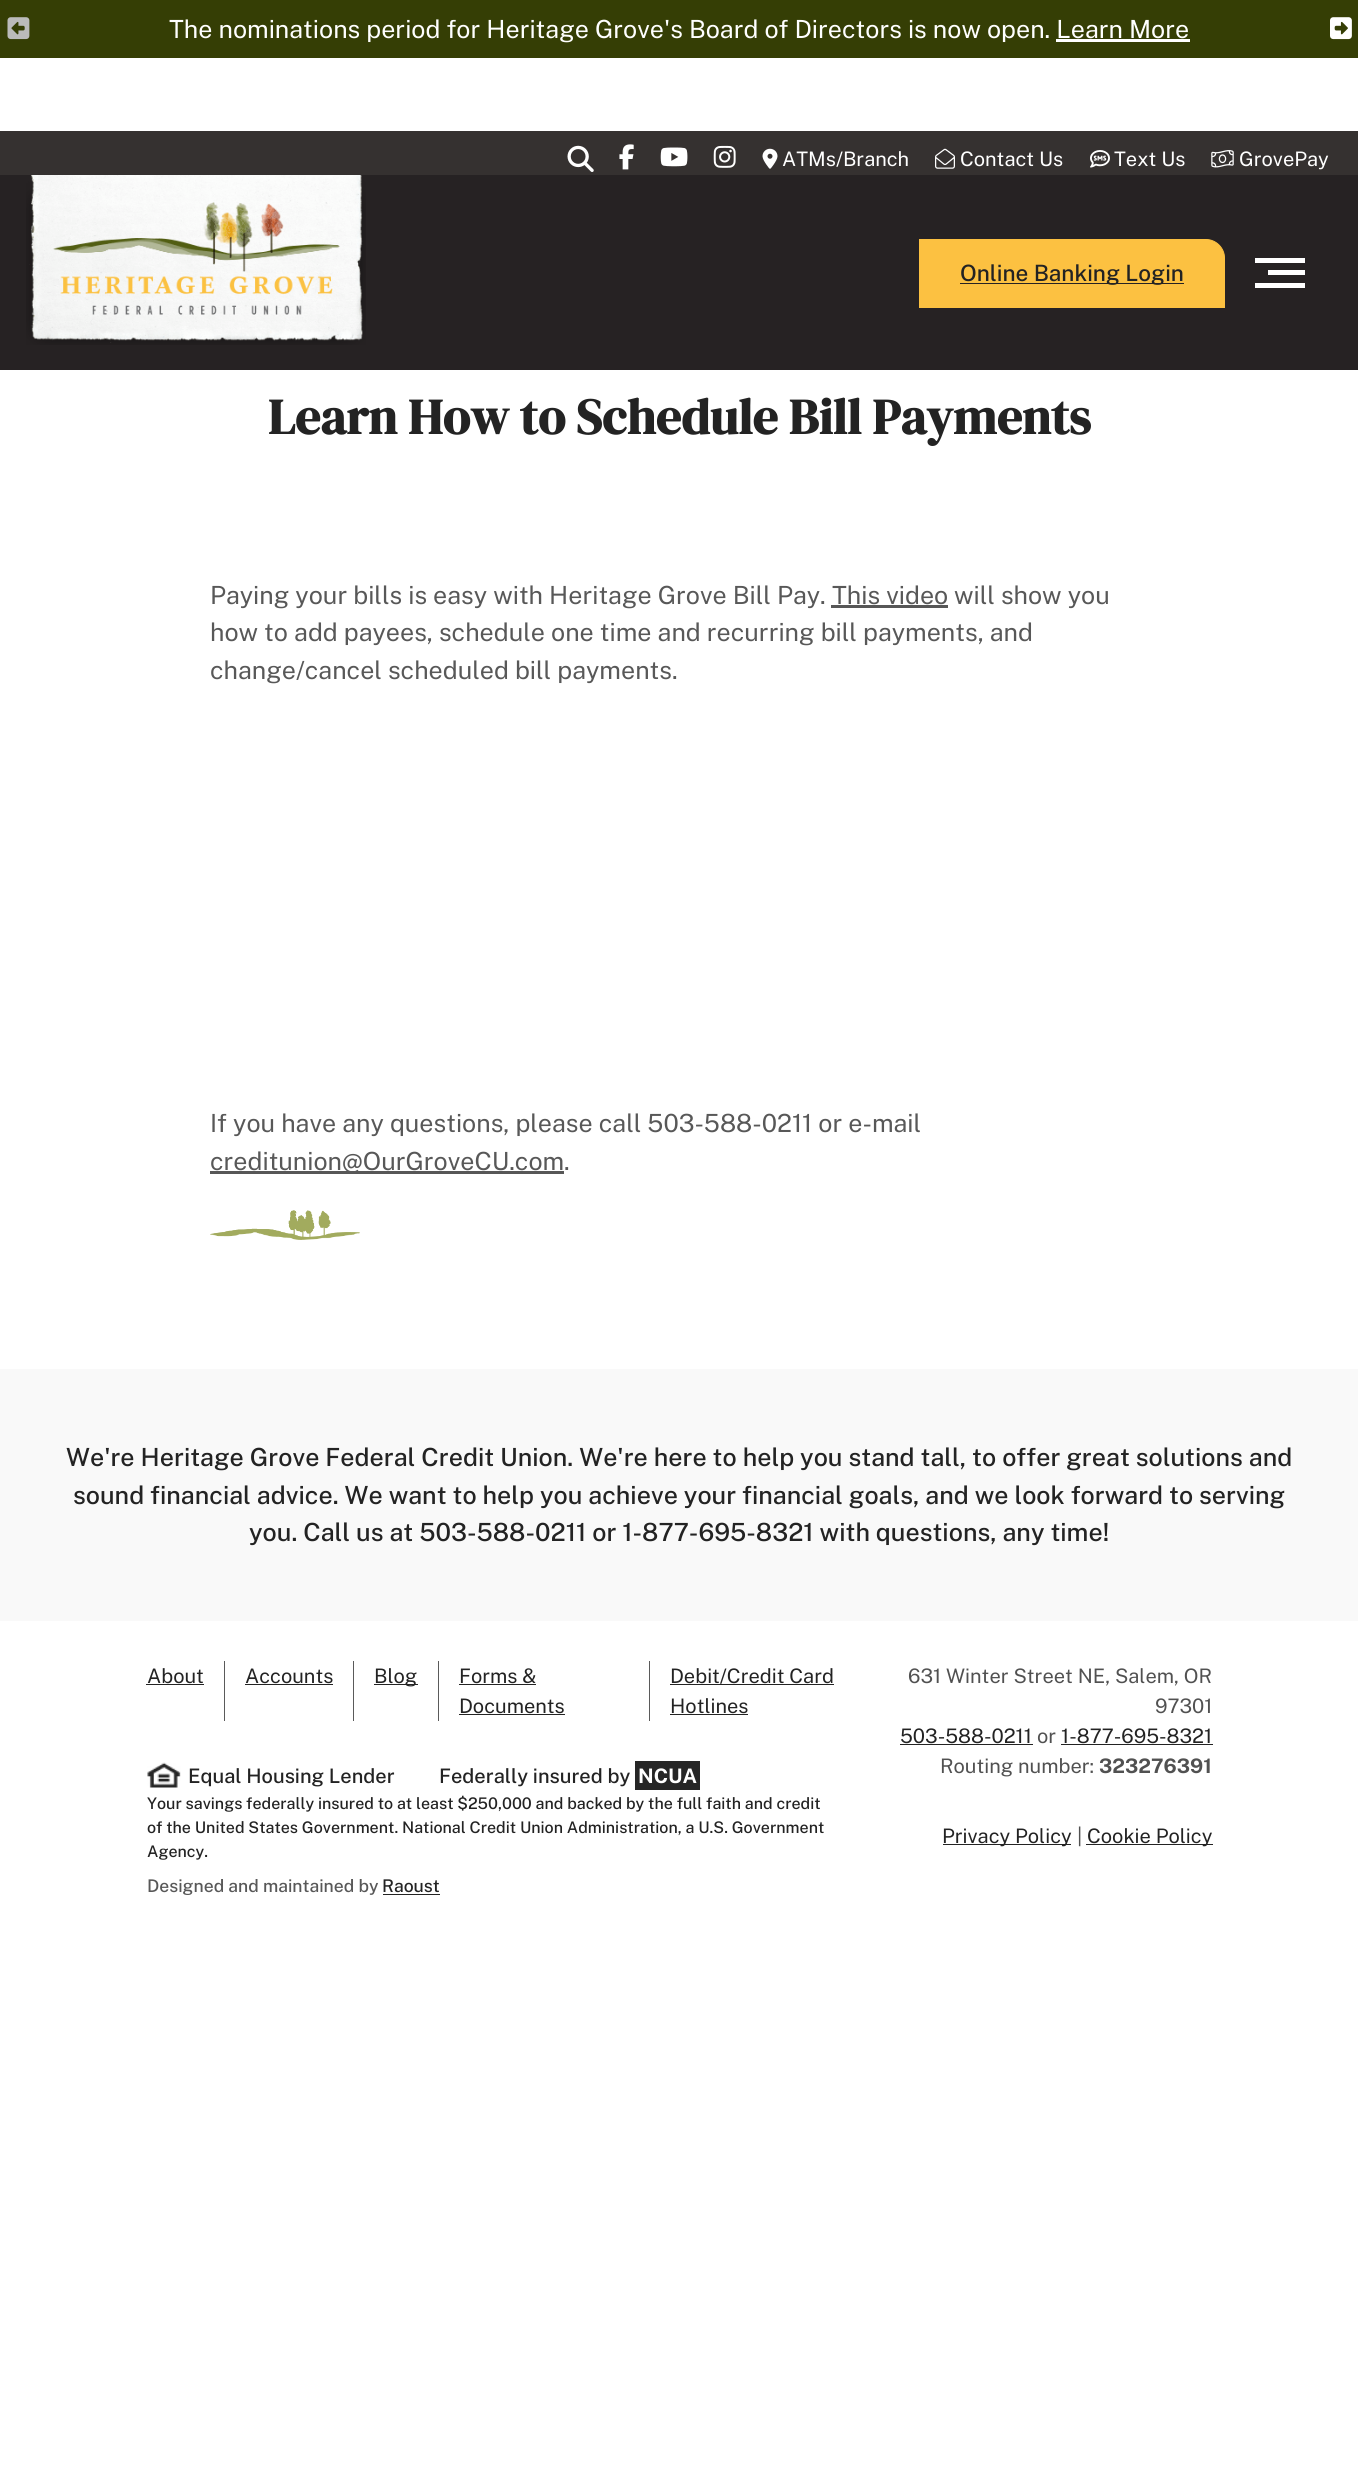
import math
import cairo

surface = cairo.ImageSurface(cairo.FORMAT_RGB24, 1358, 2465)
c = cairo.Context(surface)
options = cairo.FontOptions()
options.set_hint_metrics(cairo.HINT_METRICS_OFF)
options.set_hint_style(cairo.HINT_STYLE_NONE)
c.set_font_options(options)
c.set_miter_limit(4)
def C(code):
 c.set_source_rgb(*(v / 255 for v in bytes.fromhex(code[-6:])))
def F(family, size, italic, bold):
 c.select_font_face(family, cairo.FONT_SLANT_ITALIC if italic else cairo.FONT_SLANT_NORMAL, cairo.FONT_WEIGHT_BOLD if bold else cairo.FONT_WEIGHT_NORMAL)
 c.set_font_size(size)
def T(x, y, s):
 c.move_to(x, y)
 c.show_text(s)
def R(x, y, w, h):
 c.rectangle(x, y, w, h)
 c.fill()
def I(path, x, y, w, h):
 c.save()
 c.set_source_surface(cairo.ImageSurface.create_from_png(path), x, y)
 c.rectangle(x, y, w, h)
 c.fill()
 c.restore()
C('ffffff')
c.paint()
C('353e05')
R(0,0,1358,58)
I('1.png',7,17,23,23)
F('Public Sans',25,0,0)
C('ffffff')
T(169,38,'The nominations period for Heritage Grove\'s Board of Directors is now open. Learn More')
R(1056,39,134,3)
I('2.png',1330,17,22,23)
C('353130')
R(0,131,1358,44)
I('3.png',567,145,27,27)
I('4.png',619,144,15,26)
I('5.png',660,147,28,20)
I('6.png',713,145,23,23)
I('7.png',762,148,16,21)
F('Public Sans',20,0,0)
C('ffffff')
T(782,166,'ATMs/Branch')
I('8.png',935,148,20,21)
T(960,166,'Contact Us')
I('9.png',1090,150,20,18)
T(1114,166,'Text Us')
I('10.png',1211,150,23,18)
T(1239,166,'GrovePay')
C('262223')
R(0,175,1358,195)
I('11.png',26,175,340,170)
C('fcc141')
c.new_path()
c.move_to(919.5,239.5)
c.line_to(1206,239.5)
c.curve_to(1216,239.5,1224.5,248,1224.5,258)
c.line_to(1224.5,307.5)
c.line_to(919.5,307.5)
c.close_path()
c.fill_preserve()
c.set_line_width(1)
c.stroke()
C('262223')
R(960,283,224,1)
F('Public Sans Medium',22.5,0,0)
C('232323')
T(960,281,'Online Banking Login')
C('ffffff')
R(1255,258,50,5)
R(1268,270,37,5)
R(1255,283,50,5)
F('DM Serif Display',50,0,1)
C('232323')
T(268,434,'Learn How to Schedule Bill Payments')
F('Public Sans',25,0,0)
C('585858')
T(210,604,'Paying your bills is easy with Heritage Grove Bill Pay.')
T(832,604,'This video')
C('575757')
R(831,605,117,3)
C('585858')
T(954,604,'will show you')
T(210,641,'how to add payees, schedule one time and recurring bill payments, and')
T(210,679,'change/cancel scheduled bill payments.')
T(210,1132,'If you have any questions, please call 503-588-0211 or e-mail')
C('575757')
R(210,1171,354,3)
C('585858')
T(210,1170,'creditunion@OurGroveCU.com')
T(564,1170,'.')
I('12.png',210,1210,150,30)
C('f9f9f9')
R(0,1369,1358,252)
F('Public Sans Medium',25,0,0)
C('232323')
T(66,1466,'We\'re Heritage Grove Federal Credit Union. We\'re here to help you stand tall, to offer great solutions and')
T(73,1504,'sound financial advice. We want to help you achieve your financial goals, and we look forward to serving')
T(249,1541,'you. Call us at 503-588-0211 or 1-877-695-8321 with questions, any time!')
C('5a5a5a')
R(224,1661,1,60)
F('Public Sans',20,0,0)
C('232323')
T(147,1683,'About')
R(146,1684,58,1)
C('5a5a5a')
R(353,1661,1,60)
C('232323')
T(245,1683,'Accounts')
R(245,1684,88,1)
C('5a5a5a')
R(438,1661,1,60)
C('232323')
R(374,1684,44,1)
T(374,1683,'Blog')
C('5a5a5a')
R(649,1661,1,60)
C('232323')
T(459,1683,'Forms &')
R(459,1684,77,1)
T(459,1713,'Documents')
R(459,1714,106,1)
T(670,1683,'Debit/Credit Card')
R(670,1684,164,1)
T(670,1713,'Hotlines')
R(670,1714,78,1)
I('13.png',147,1762,34,26)
F('Public Sans Medium',20,0,0)
T(188,1783,'Equal Housing Lender')
T(439,1783,'Federally insured by')
C('262626')
R(635,1761,65,29)
F('Public Sans',20,0,1)
C('ffffff')
T(638,1783,'NCUA')
F('Public Sans Medium',16,0,0)
C('232323')
T(147,1809,'Your savings federally insured to at least $250,000 and backed by the full faith and credit')
T(147,1833,'of the United States Government. National Credit Union Administration, a U.S. Government')
T(147,1857,'Agency.')
F('Public Sans Medium',17.5,0,0)
C('585858')
T(147,1892,'Designed and maintained by')
C('232323')
T(382,1892,'Raoust')
R(383,1894,57,1)
F('Public Sans',20,0,0)
C('515151')
T(908,1683,'631 Winter Street NE, Salem, OR')
T(1155,1713,'97301')
C('232323')
T(900,1743,'503-588-0211')
R(900,1744,133,1)
C('515151')
T(1037,1743,'or')
C('232323')
T(1061,1743,'1-877-695-8321')
R(1061,1744,152,1)
C('515151')
T(940,1773,'Routing number:')
F('Public Sans',20,0,1)
T(1099,1773,'323276391')
C('232323')
R(943,1844,128,1)
F('Public Sans',20,0,0)
T(942,1843,'Privacy Policy')
C('515151')
T(1077,1843,'|')
C('232323')
R(1086,1844,127,1)
T(1087,1843,'Cookie Policy')
surface.write_to_png('o.png')
